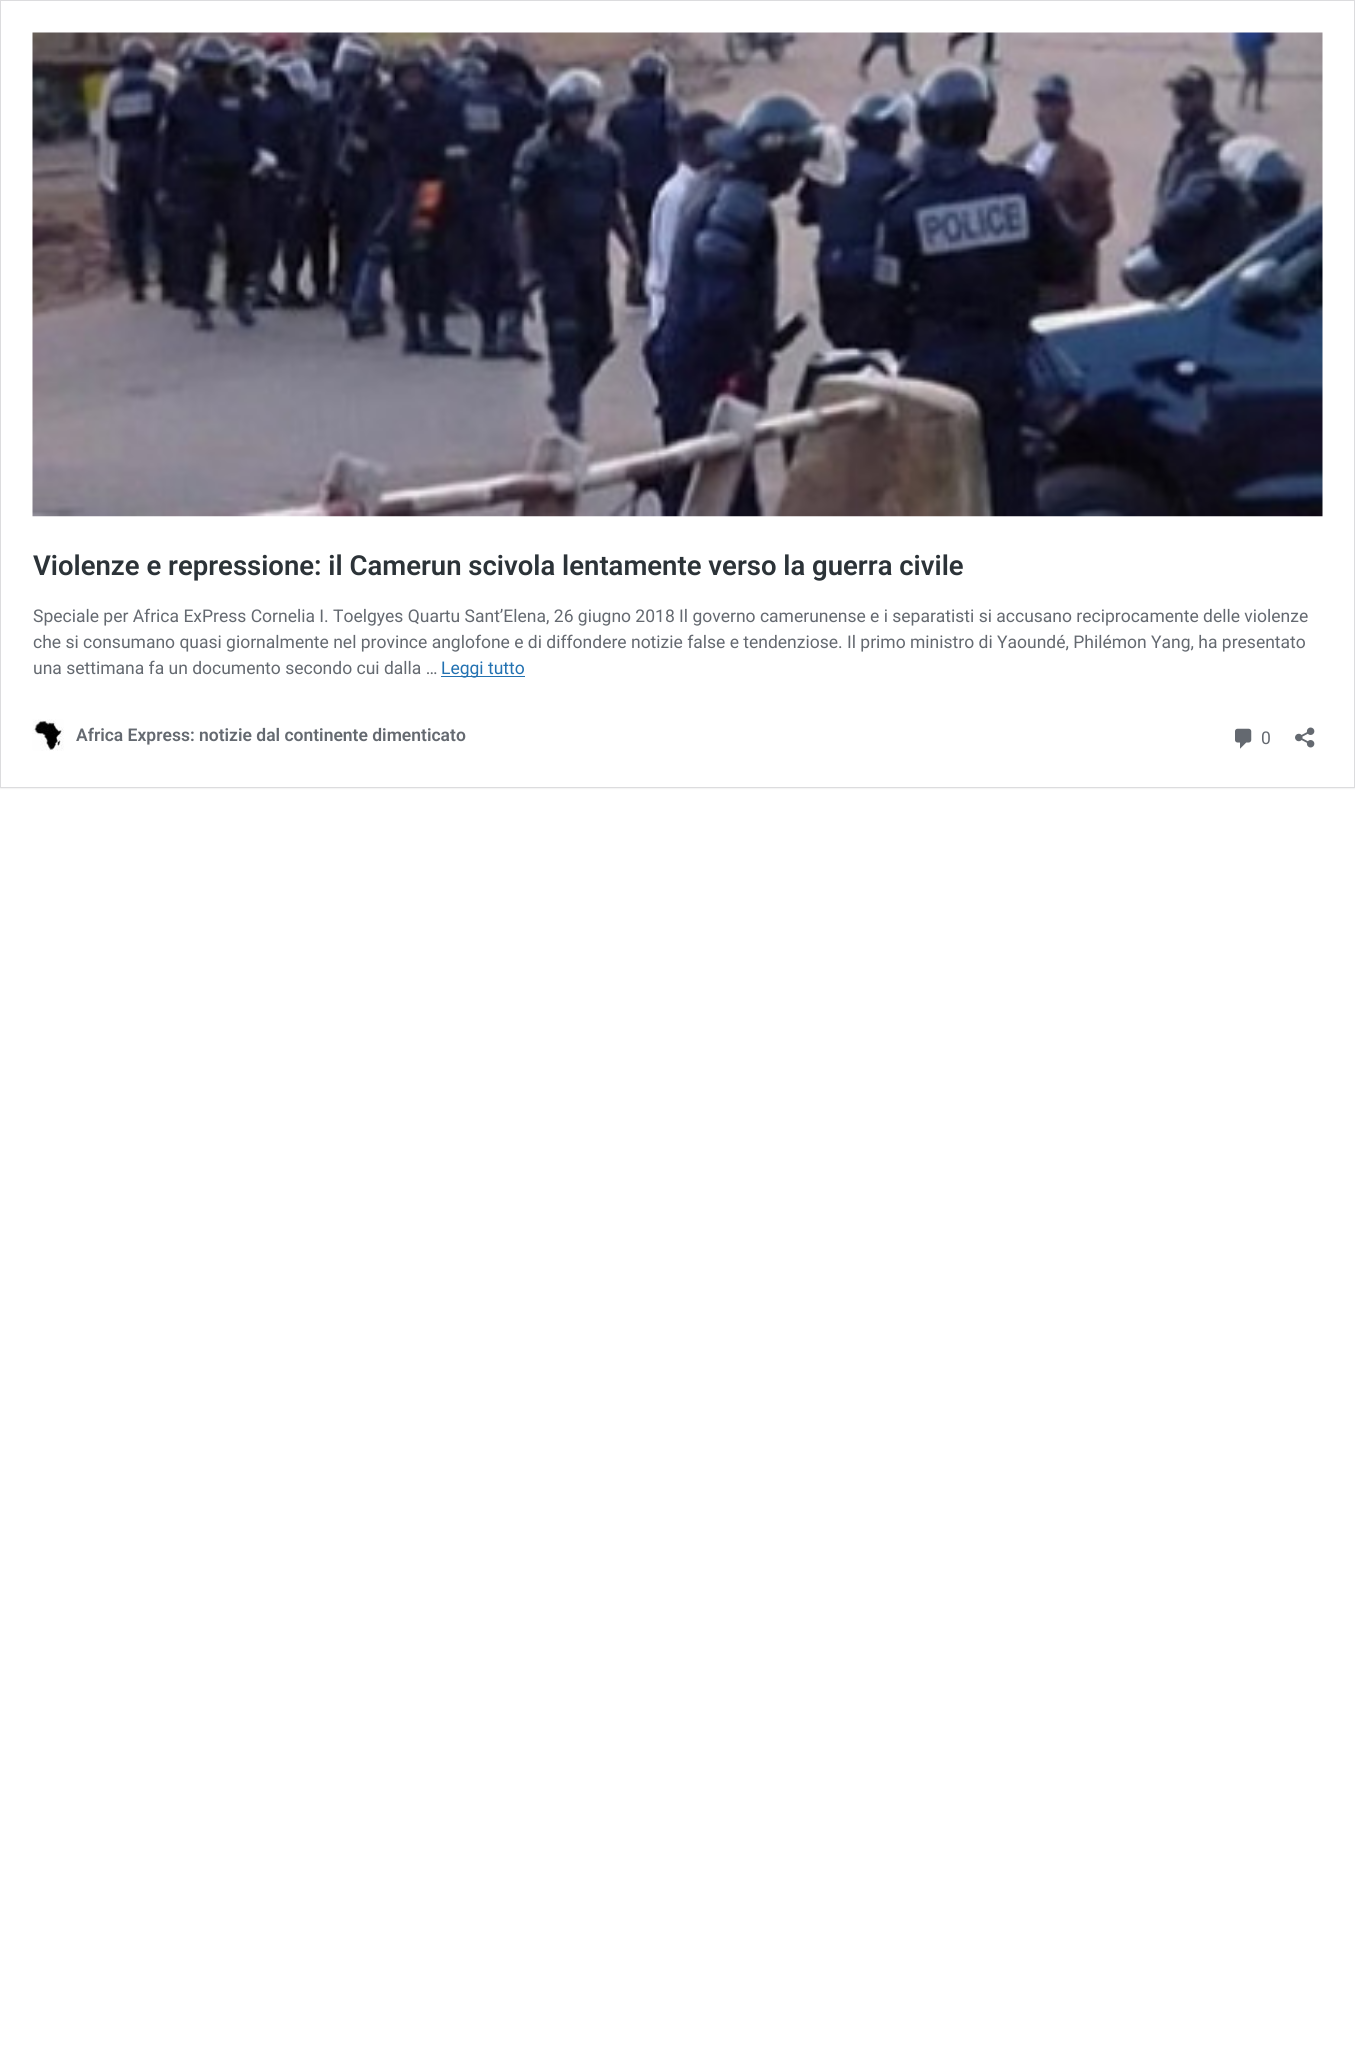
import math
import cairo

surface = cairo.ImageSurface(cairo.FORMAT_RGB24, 1355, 2063)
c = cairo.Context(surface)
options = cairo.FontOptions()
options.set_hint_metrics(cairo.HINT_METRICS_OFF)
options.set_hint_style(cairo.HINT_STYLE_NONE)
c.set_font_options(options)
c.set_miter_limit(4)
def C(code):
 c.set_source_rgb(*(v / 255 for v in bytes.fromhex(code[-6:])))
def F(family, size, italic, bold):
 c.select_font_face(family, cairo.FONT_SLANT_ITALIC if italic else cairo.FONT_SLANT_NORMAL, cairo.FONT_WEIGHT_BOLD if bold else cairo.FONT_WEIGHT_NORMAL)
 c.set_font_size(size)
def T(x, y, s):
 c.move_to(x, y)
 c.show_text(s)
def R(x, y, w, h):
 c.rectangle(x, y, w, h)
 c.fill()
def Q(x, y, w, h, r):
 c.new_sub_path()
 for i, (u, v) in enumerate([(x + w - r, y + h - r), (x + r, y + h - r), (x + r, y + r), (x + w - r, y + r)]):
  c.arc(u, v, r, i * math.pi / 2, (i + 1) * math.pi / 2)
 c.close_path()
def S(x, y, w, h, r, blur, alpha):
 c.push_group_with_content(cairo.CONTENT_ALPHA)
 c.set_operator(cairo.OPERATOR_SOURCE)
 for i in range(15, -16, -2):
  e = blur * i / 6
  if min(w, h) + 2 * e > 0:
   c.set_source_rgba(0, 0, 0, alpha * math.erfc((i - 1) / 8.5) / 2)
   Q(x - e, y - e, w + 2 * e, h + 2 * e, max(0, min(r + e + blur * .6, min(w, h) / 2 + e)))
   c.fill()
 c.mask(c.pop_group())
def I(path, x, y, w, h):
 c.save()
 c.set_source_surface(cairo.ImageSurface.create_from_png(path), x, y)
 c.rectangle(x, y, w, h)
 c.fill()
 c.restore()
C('ffffff')
c.paint()
C('000000')
S(0,1,1355,788,0,.5,.05)
C('ffffff')
c.rectangle(.5,.5,1354,787)
c.fill_preserve()
C('dcdcde')
c.set_line_width(1)
c.stroke()
I('1.png',32,32,1291,485)
F('Roboto SemiBold',27.5,0,0)
C('2c3338')
T(33,575,'Violenze e repressione: il Camerun scivola lentamente verso la guerra civile')
F('Roboto',17.5,0,0)
C('646970')
T(33,622,'Speciale per Africa ExPress Cornelia I. Toelgyes Quartu Sant’Elena, 26 giugno 2018 Il governo camerunense e i separatisti si accusano reciprocamente delle violenze')
T(33,648,'che si consumano quasi giornalmente nel province anglofone e di diffondere notizie false e tendenziose. Il primo ministro di Yaoundé, Philémon Yang, ha presentato')
T(33,674,'una settimana fa un documento secondo cui dalla …')
C('2271b1')
R(441,676,84,1)
T(441,674,'Leggi tutto')
I('2.png',32,719,32,32)
F('Roboto SemiBold',17.5,0,0)
C('646970')
T(76,741,'Africa Express: notizie dal continente dimenticato')
I('3.png',1235,728,17,21)
F('Roboto',17.5,0,0)
T(1261,744,'0')
I('4.png',1295,727,20,21)
surface.write_to_png('o.png')
